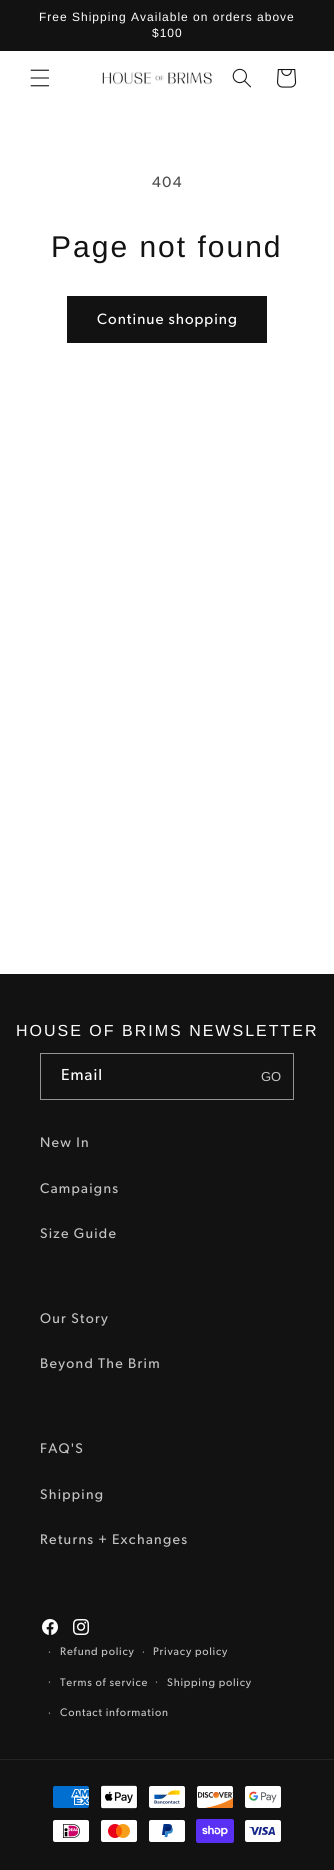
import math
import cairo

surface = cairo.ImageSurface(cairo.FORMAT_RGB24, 334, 1870)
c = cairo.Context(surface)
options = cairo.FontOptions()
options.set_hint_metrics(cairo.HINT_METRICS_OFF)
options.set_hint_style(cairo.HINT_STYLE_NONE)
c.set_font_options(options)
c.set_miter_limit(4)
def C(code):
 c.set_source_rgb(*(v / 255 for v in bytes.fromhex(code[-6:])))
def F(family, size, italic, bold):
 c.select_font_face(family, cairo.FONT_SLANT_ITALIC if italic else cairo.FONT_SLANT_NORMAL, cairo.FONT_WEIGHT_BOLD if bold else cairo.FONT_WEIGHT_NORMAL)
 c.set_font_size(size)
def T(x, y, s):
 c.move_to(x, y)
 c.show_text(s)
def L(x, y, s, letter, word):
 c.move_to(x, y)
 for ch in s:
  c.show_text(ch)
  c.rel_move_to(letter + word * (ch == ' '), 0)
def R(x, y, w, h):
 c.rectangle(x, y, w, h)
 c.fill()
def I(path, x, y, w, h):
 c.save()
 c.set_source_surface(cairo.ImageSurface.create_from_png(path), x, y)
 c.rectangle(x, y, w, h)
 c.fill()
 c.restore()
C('ffffff')
c.paint()
C('121212')
R(0,0,334,51)
F('Liberation Sans',12,0,0)
C('ffffff')
L(39,21,'Free Shipping Available on orders above',1,0)
L(152,37,'$100',1,0)
I('1.png',30,69,20,18)
I('2.png',102,71,110,14)
I('3.png',232,68,19,20)
I('4.png',277,69,20,19)
F('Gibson',15,0,0)
C('4d4d4d')
L(152,187,'404',1.25,0)
F('Liberation Sans',30,0,0)
C('121212')
L(51,257,'Page not found',2,0)
R(67,296,200,47)
F('Gibson',15,0,0)
C('ffffff')
L(97,324,'Continue shopping',1,0)
C('121212')
R(0,974,334,896)
F('Liberation Sans',16,0,0)
C('ffffff')
L(16,1036,'HOUSE OF BRIMS NEWSLETTER',2,0)
c.rectangle(40.5,1053.5,253,46)
C('949494')
c.set_line_width(1)
c.stroke()
F('Gibson',16,0,0)
C('ffffff')
L(61,1080,'Email',1,0)
F('Liberation Sans',13,0,0)
C('c4c4c4')
T(261,1081,'GO')
F('Gibson',14,0,0)
L(40,1147,'New In',1.25,0)
L(40,1193,'Campaigns',1.25,0)
L(40,1238,'Size Guide',1.25,0)
L(40,1323,'Our Story',1.25,0)
L(40,1368,'Beyond The Brim',1.25,0)
L(40,1453,'FAQ\'S',1.25,0)
L(40,1499,'Shipping',1.25,0)
L(40,1544,'Returns + Exchanges',1.25,0)
I('5.png',42,1619,16,16)
I('6.png',73,1619,16,16)
F('Gibson',10,0,0)
L(48,1655,'·',.75,0)
F('Gibson',11,0,0)
L(60,1655,'Refund policy',.75,0)
F('Gibson',10,0,0)
L(142,1655,'·',.75,0)
F('Gibson',11,0,0)
L(153,1655,'Privacy policy',.75,0)
F('Gibson',10,0,0)
L(48,1685,'·',.75,0)
F('Gibson',11,0,0)
L(60,1686,'Terms of service',.75,0)
F('Gibson',10,0,0)
L(155,1685,'·',.75,0)
F('Gibson',11,0,0)
L(167,1686,'Shipping policy',.75,0)
F('Gibson',10,0,0)
L(48,1716,'·',.75,0)
F('Gibson',11,0,0)
L(60,1716,'Contact information',.75,0)
C('252525')
R(0,1759,334,1)
I('7.png',53,1786,36,22)
I('8.png',100,1785,38,24)
I('9.png',149,1786,36,22)
I('10.png',197,1786,36,22)
I('11.png',245,1786,36,22)
I('12.png',53,1820,36,22)
I('13.png',101,1820,36,22)
I('14.png',149,1820,36,22)
I('15.png',196,1819,38,24)
I('16.png',245,1820,36,22)
surface.write_to_png('o.png')
